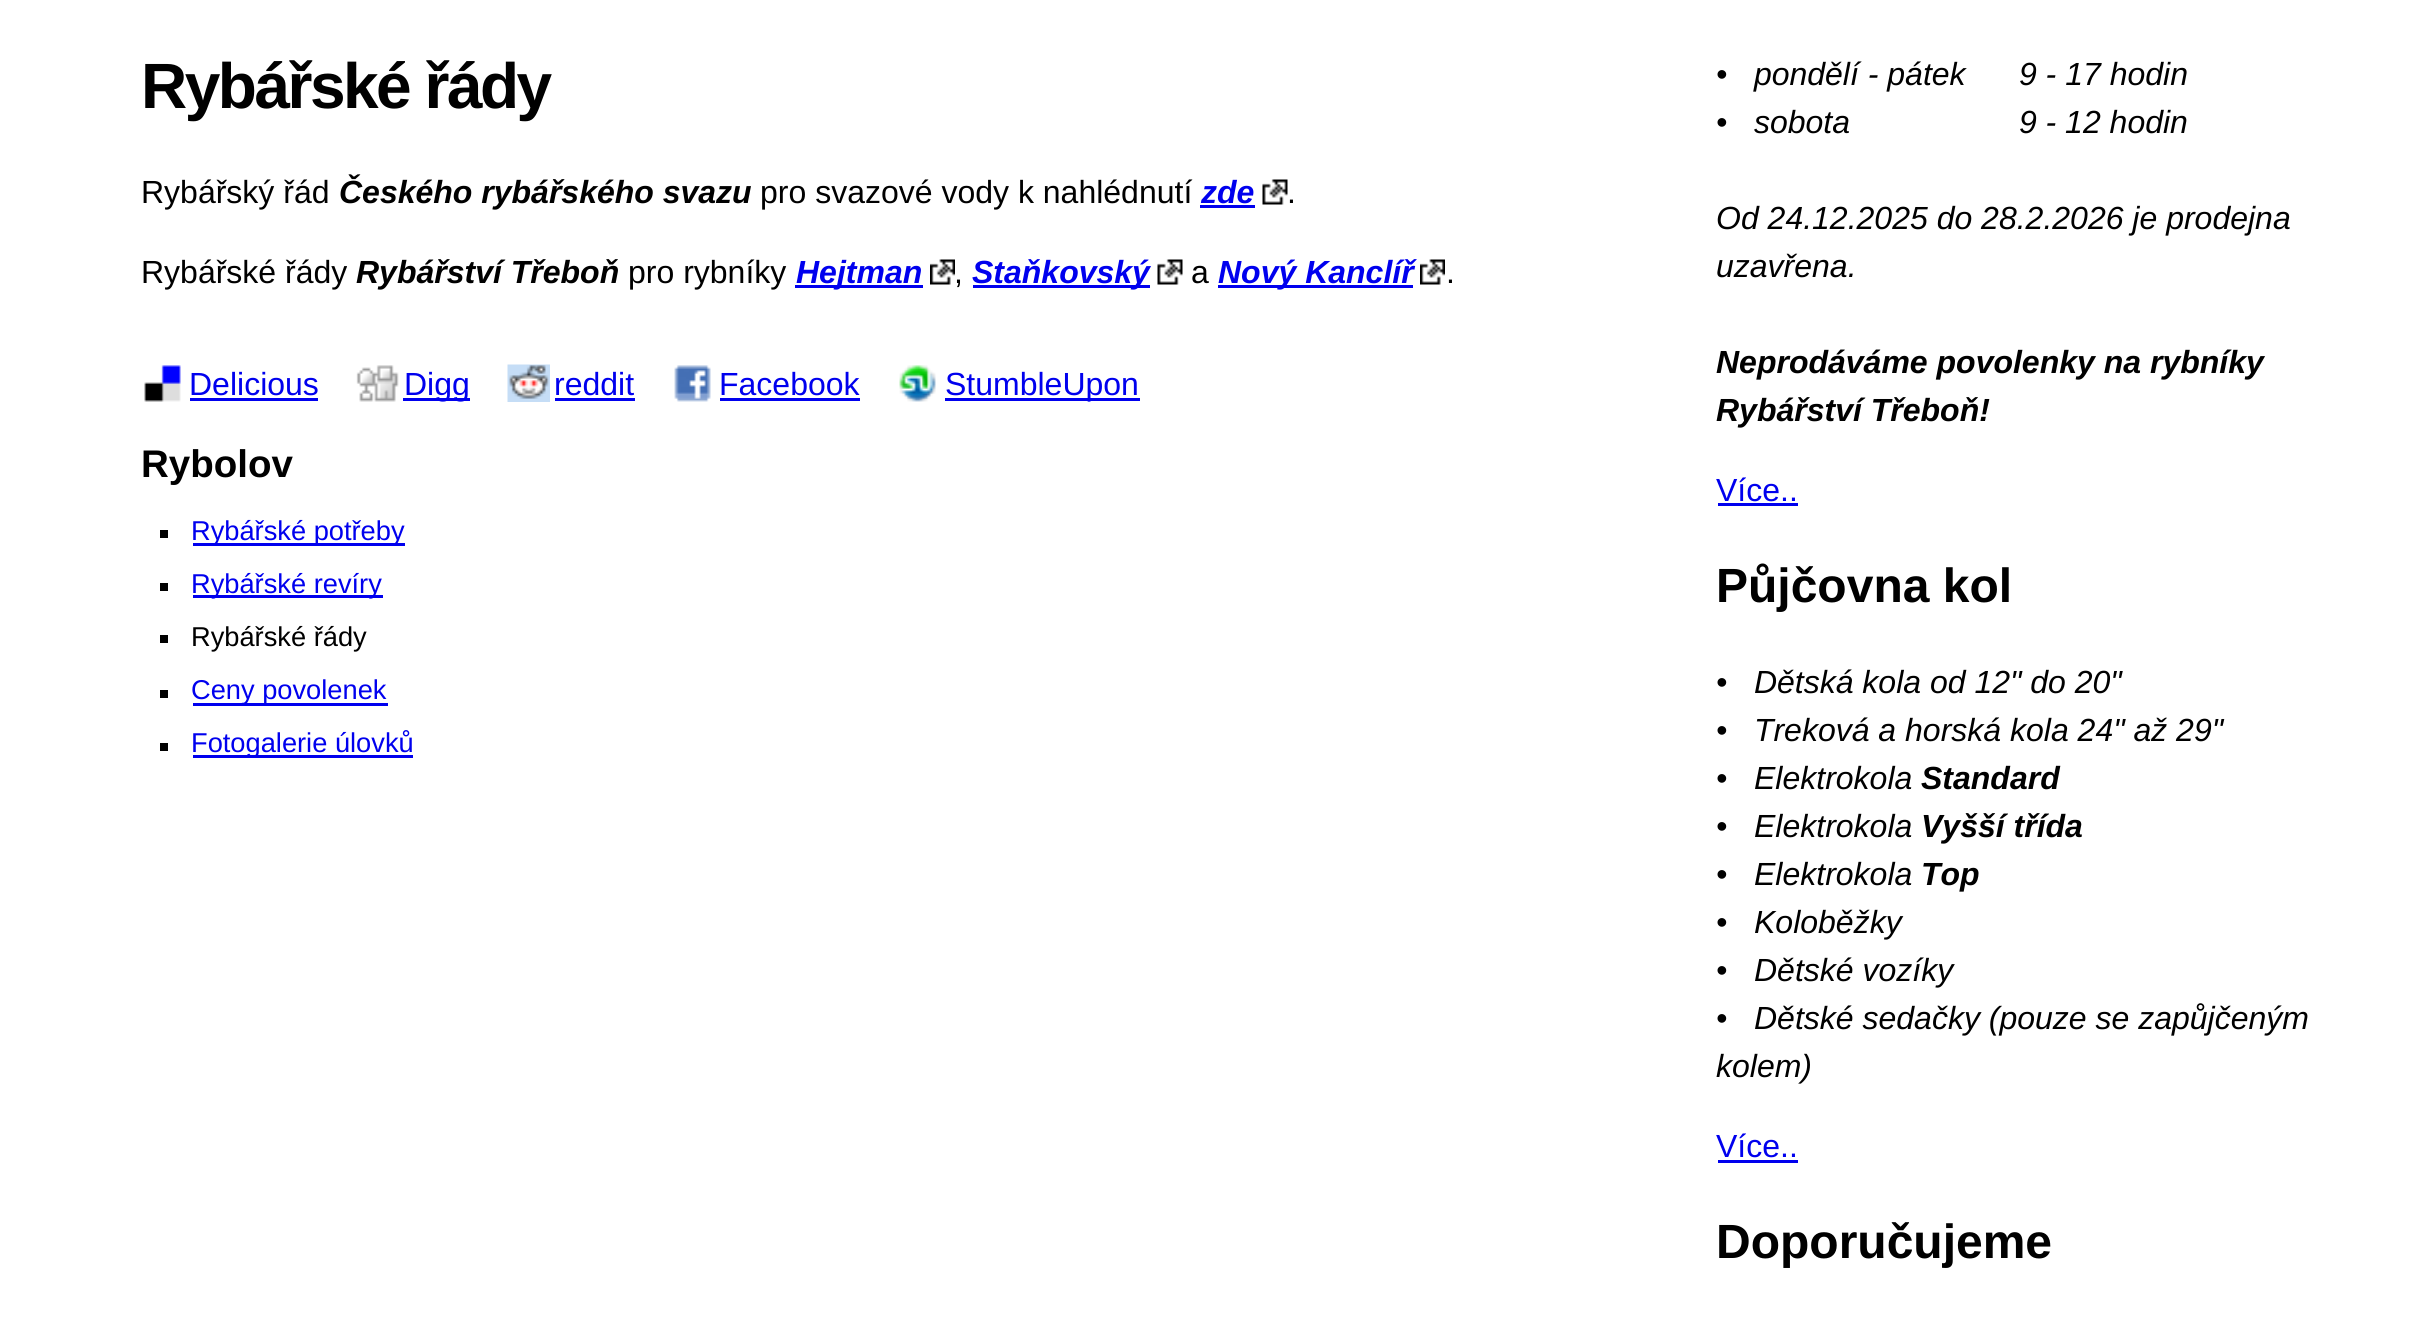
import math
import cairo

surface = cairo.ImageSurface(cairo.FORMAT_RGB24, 2432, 1323)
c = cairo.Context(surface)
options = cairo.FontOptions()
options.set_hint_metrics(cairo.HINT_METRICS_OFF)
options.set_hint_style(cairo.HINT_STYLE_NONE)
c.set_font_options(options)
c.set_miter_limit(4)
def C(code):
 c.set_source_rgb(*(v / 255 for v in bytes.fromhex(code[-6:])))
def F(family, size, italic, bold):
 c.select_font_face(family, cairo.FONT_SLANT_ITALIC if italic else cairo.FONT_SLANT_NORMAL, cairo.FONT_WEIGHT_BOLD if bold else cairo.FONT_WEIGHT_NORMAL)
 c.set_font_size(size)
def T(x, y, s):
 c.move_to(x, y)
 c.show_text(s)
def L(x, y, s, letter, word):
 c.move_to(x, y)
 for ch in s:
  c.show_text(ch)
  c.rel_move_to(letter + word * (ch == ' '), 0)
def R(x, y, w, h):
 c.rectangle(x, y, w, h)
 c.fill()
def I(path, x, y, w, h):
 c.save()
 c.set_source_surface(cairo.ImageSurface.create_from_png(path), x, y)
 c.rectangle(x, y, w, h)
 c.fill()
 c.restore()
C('ffffff')
c.paint()
F('Liberation Sans',64,0,1)
C('000000')
L(141,108,'Rybářské řády',-2.5,0)
F('Liberation Sans',32,0,0)
T(141,203,'Rybářský řád')
F('Liberation Sans',32,1,1)
T(339,203,'Českého rybářského svazu')
F('Liberation Sans',32,0,0)
T(760,203,'pro svazové vody k nahlédnutí')
F('Liberation Sans',32,1,1)
C('0000ee')
T(1201,203,'zde')
R(1200,205,55,3)
I('1.png',1262,179,26,26)
F('Liberation Sans',32,0,0)
C('000000')
T(1287,203,'.')
T(141,283,'Rybářské řády')
F('Liberation Sans',32,1,1)
T(356,283,'Rybářství Třeboň')
F('Liberation Sans',32,0,0)
T(628,283,'pro rybníky')
C('0000ee')
R(795,285,128,3)
F('Liberation Sans',32,1,1)
T(796,283,'Hejtman')
I('2.png',930,259,25,26)
F('Liberation Sans',32,0,0)
C('000000')
T(954,283,',')
C('0000ee')
R(973,285,177,3)
F('Liberation Sans',32,1,1)
T(972,283,'Staňkovský')
I('3.png',1157,259,26,26)
F('Liberation Sans',32,0,0)
C('000000')
T(1191,283,'a')
C('0000ee')
R(1218,285,195,3)
F('Liberation Sans',32,1,1)
T(1218,283,'Nový Kanclíř')
I('4.png',1420,259,25,26)
F('Liberation Sans',32,0,0)
C('000000')
T(1446,283,'.')
I('5.png',144,365,37,37)
C('0000ee')
T(189,395,'Delicious')
R(190,398,128,3)
I('6.png',356,365,43,37)
R(403,398,67,3)
T(404,395,'Digg')
I('7.png',507,364,43,38)
T(554,395,'reddit')
R(555,398,80,3)
I('8.png',674,365,37,37)
T(719,395,'Facebook')
R(720,398,140,3)
I('9.png',899,365,37,37)
R(945,398,195,3)
T(945,395,'StumbleUpon')
F('Liberation Sans',38.5,0,1)
C('000000')
T(141,477,'Rybolov')
R(160,530,8,8)
C('0000ee')
R(193,543,212,3)
F('Liberation Sans',27.25,0,0)
T(191,540,'Rybářské potřeby')
C('000000')
R(160,583,8,8)
C('0000ee')
R(193,595,190,3)
T(191,593,'Rybářské revíry')
C('000000')
R(160,635,8,8)
T(191,646,'Rybářské řády')
R(160,690,8,8)
C('0000ee')
R(193,703,195,3)
T(191,699,'Ceny povolenek')
C('000000')
R(160,743,8,8)
C('0000ee')
R(193,755,220,3)
T(191,752,'Fotogalerie úlovků')
F('Liberation Sans',32,1,0)
C('000000')
T(1716,85,'•   pondělí - pátek      9 - 17 hodin')
T(1716,133,'•   sobota                   9 - 12 hodin')
T(1716,229,'Od 24.12.2025 do 28.2.2026 je prodejna')
T(1716,277,'uzavřena.')
F('Liberation Sans',32,1,1)
T(1716,373,'Neprodáváme povolenky na rybníky')
T(1716,421,'Rybářství Třeboň!')
F('Liberation Sans',32,0,0)
C('0000ee')
T(1716,501,'Více..')
R(1718,503,80,3)
F('Liberation Sans',48,0,1)
C('000000')
T(1716,602,'Půjčovna kol')
F('Liberation Sans',32,1,0)
T(1716,693,'•   Dětská kola od 12" do 20"')
T(1716,741,'•   Treková a horská kola 24" až 29"')
T(1716,789,'•')
T(1754,789,'Elektrokola')
F('Liberation Sans',32,1,1)
T(1921,789,'Standard')
F('Liberation Sans',32,1,0)
T(1716,837,'•')
T(1754,837,'Elektrokola')
F('Liberation Sans',32,1,1)
T(1921,837,'Vyšší třída')
F('Liberation Sans',32,1,0)
T(1716,885,'•')
T(1754,885,'Elektrokola')
F('Liberation Sans',32,1,1)
T(1921,885,'Top')
F('Liberation Sans',32,1,0)
T(1716,933,'•')
T(1754,933,'Koloběžky')
T(1716,981,'•')
T(1754,981,'Dětské vozíky')
T(1716,1029,'•')
T(1754,1029,'Dětské sedačky (pouze se zapůjčeným')
T(1716,1077,'kolem)')
F('Liberation Sans',32,0,0)
C('0000ee')
T(1716,1157,'Více..')
R(1718,1160,80,3)
F('Liberation Sans',48,0,1)
C('000000')
T(1716,1258,'Doporučujeme')
surface.write_to_png('o.png')
